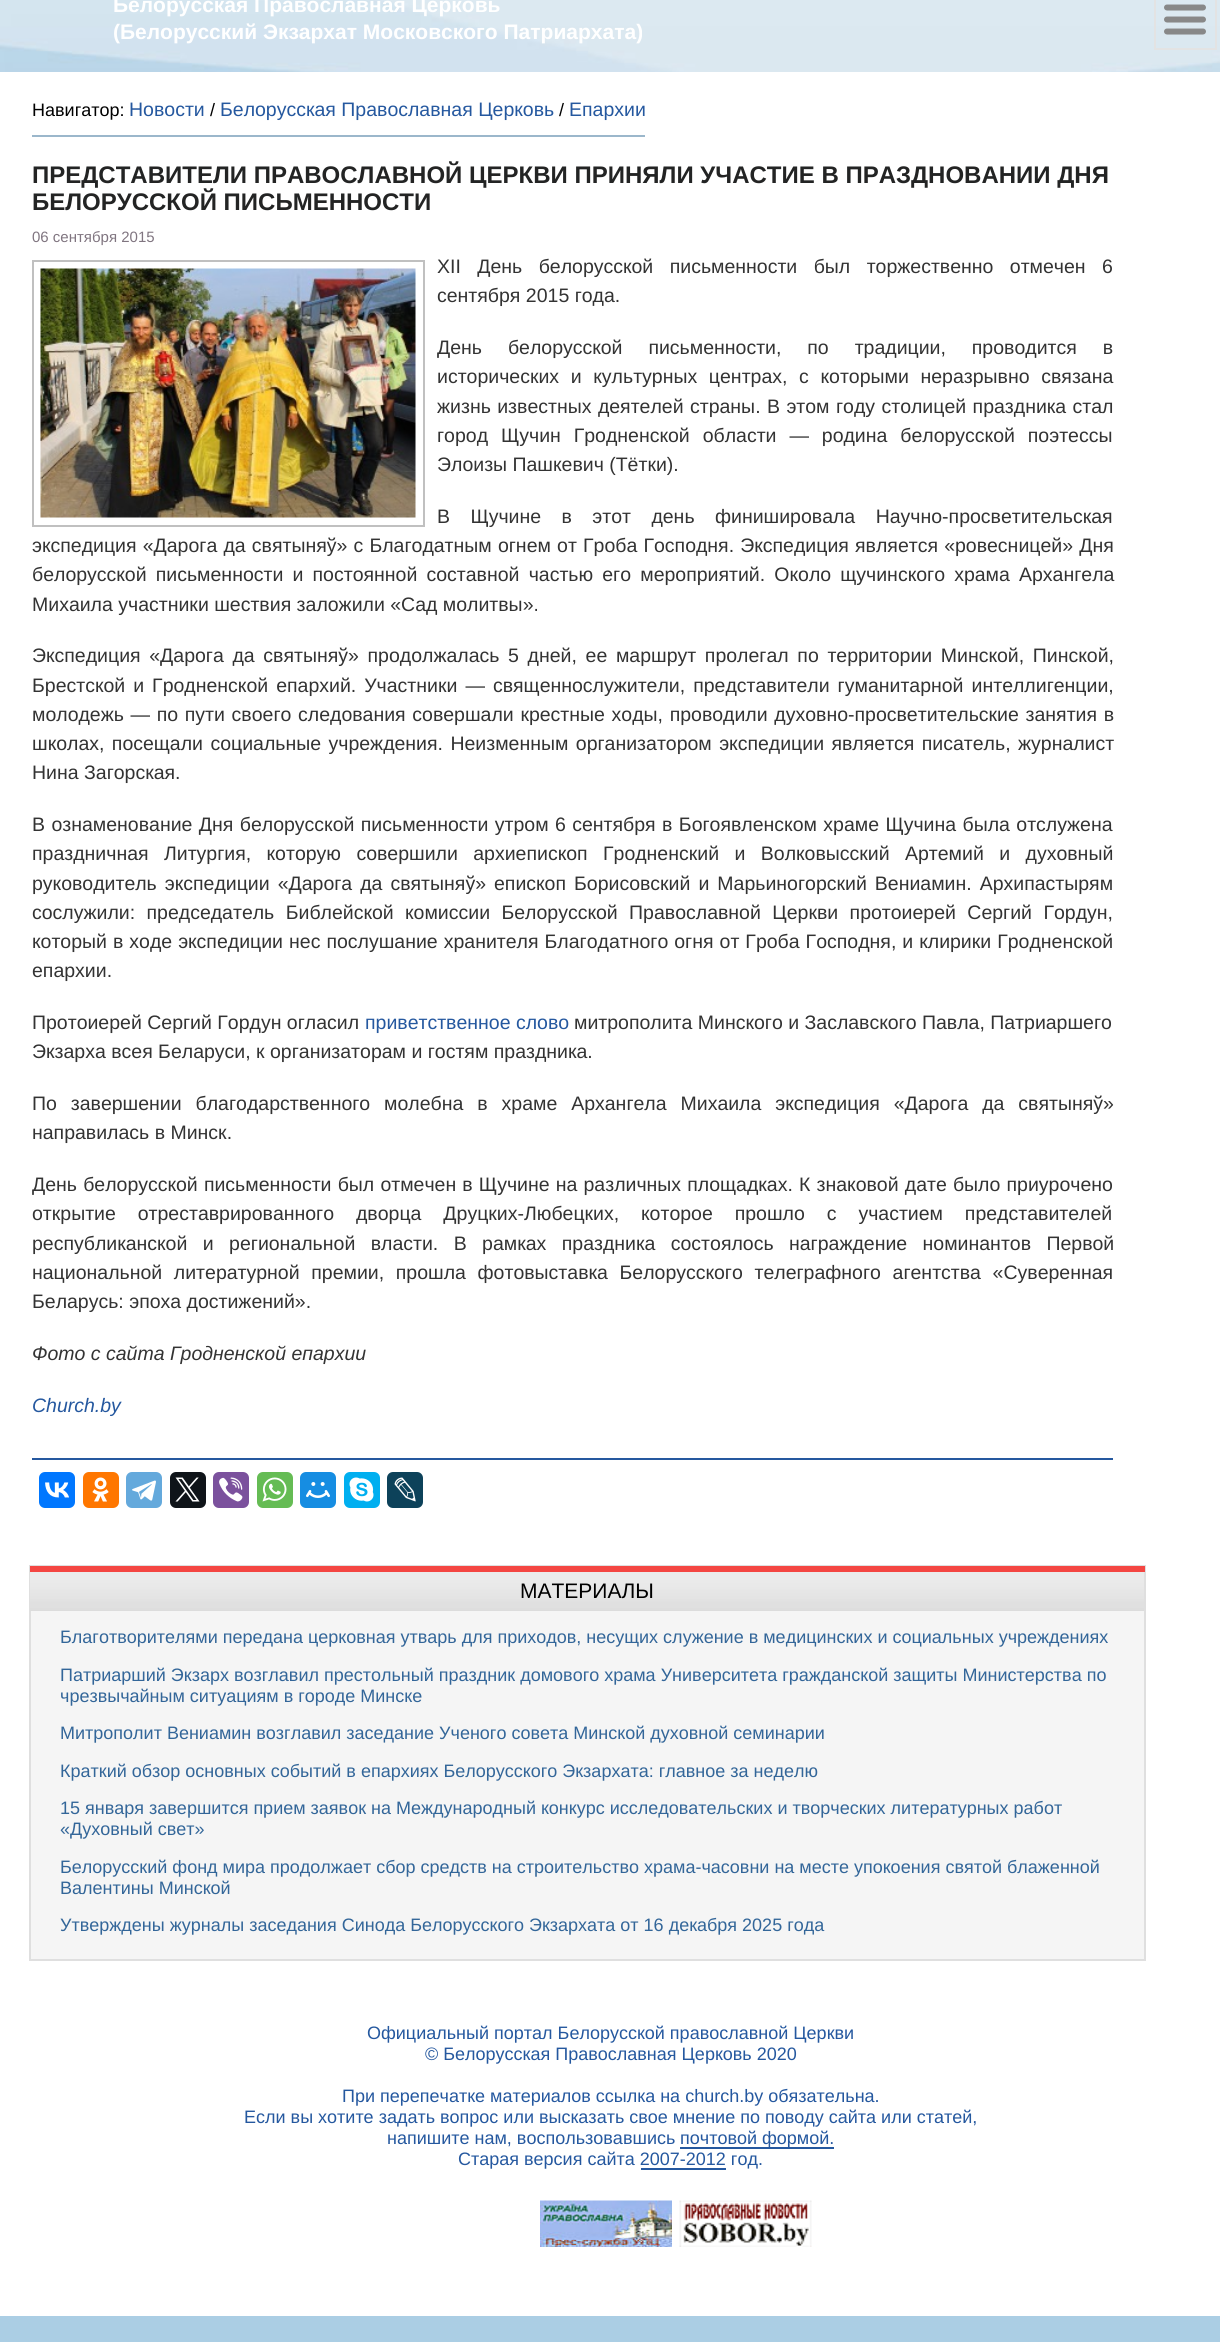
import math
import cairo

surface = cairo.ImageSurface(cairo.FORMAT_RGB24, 1220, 2342)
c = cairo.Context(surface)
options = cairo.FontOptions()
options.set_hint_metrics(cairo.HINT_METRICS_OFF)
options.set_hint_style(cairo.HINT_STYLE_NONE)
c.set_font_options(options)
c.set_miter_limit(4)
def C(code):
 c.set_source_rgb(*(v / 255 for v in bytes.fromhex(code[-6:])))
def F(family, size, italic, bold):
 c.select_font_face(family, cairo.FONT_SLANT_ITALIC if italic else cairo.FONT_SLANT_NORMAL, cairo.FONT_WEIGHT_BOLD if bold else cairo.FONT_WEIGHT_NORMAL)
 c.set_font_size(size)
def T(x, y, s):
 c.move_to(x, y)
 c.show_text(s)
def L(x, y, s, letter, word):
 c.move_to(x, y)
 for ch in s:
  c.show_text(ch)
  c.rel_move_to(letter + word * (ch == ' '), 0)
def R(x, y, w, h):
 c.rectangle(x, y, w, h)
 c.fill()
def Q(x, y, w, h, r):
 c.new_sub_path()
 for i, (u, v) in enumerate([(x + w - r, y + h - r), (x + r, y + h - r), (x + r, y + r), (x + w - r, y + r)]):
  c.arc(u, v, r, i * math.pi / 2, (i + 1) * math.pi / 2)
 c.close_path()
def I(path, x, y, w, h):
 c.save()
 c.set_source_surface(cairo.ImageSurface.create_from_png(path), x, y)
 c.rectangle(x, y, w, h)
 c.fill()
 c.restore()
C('abcee4')
c.paint()
I('1.png',0,0,1220,72)
F('Liberation Sans',21,0,1)
C('ffffff')
T(113,12,'Белорусская Православная Церковь')
T(113,39,'(Белорусский Экзархат Московского Патриархата)')
c.rectangle(1155,-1,61,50)
C('e3e3e3')
c.stroke()
I('2.png',1164,4,42,31)
C('ffffff')
R(0,72,1220,2244)
F('Liberation Sans',18,0,0)
C('000000')
T(32,116,'Навигатор:')
C('9bb7cb')
R(32,135,613,2)
F('Liberation Sans',19.5,0,0)
C('25589f')
T(129,116,'Новости')
F('Liberation Sans',18,0,0)
C('000000')
T(210,116,'/')
F('Liberation Sans',19.5,0,0)
C('25589f')
T(220,116,'Белорусская Православная Церковь')
F('Liberation Sans',18,0,0)
C('000000')
T(559,116,'/')
F('Liberation Sans',19.5,0,0)
C('25589f')
T(569,116,'Епархии')
F('Liberation Sans',24,0,1)
C('232424')
T(32,183,'ПРЕДСТАВИТЕЛИ ПРАВОСЛАВНОЙ ЦЕРКВИ ПРИНЯЛИ УЧАСТИЕ В ПРАЗДНОВАНИИ ДНЯ')
T(32,210,'БЕЛОРУССКОЙ ПИСЬМЕННОСТИ')
F('Liberation Sans',15,0,0)
C('807580')
T(32,242,'06 сентября 2015')
c.rectangle(33,261,391,265)
C('c0c0c0')
c.stroke()
I('3.png',40,268,376,250)
F('Liberation Sans',19.5,0,0)
C('333333')
L(437,273,'XII День белорусской письменности был торжественно отмечен 6',0,11)
T(437,302,'сентября 2015 года.')
L(437,354,'День белорусской письменности, по традиции, проводится в',0,20.5)
L(437,383,'исторических и культурных центрах, с которыми неразрывно связана',0,6.25)
L(437,413,'жизнь известных деятелей страны. В этом году столицей праздника стал',0,1)
L(437,442,'город Щучин Гродненской области — родина белорусской поэтессы',0,7.5)
T(437,471,'Элоизы Пашкевич (Тётки).')
L(437,523,'В Щучине в этот день финишировала Научно-просветительская',0,15)
L(32,552,'экспедиция «Дарога да святыняў» с Благодатным огнем от Гроба Господня. Экспедиция является «ровесницей» Дня',0,.75)
L(32,581,'белорусской письменности и постоянной составной частью его мероприятий. Около щучинского храма Архангела',0,3.75)
T(32,611,'Михаила участники шествия заложили «Сад молитвы».')
L(32,662,'Экспедиция «Дарога да святыняў» продолжалась 5 дней, ее маршрут пролегал по территории Минской, Пинской,',0,3.25)
L(32,692,'Брестской и Гродненской епархий. Участники — священнослужители, представители гуманитарной интеллигенции,',0,2.6)
L(32,721,'молодежь — по пути своего следования совершали крестные ходы, проводили духовно-просветительские занятия в',0,1.25)
L(32,750,'школах, посещали социальные учреждения. Неизменным организатором экспедиции является писатель, журналист',0,2)
T(32,779,'Нина Загорская.')
L(32,831,'В ознаменование Дня белорусской письменности утром 6 сентября в Богоявленском храме Щучина была отслужена',0,1)
L(32,860,'праздничная Литургия, которую совершили архиепископ Гродненский и Волковысский Артемий и духовный',0,10)
L(32,890,'руководитель экспедиции «Дарога да святыняў» епископ Борисовский и Марьиногорский Вениамин. Архипастырям',0,2.6)
L(32,919,'сослужили: председатель Библейской комиссии Белорусской Православной Церкви протоиерей Сергий Гордун,',0,6)
L(32,948,'который в ходе экспедиции нес послушание хранителя Благодатного огня от Гроба Господня, и клирики Гродненской',0,.6)
T(32,977,'епархии.')
T(32,1029,'Протоиерей Сергий Гордун огласил')
C('25589f')
T(365,1029,'приветственное слово')
C('333333')
T(574,1029,'митрополита Минского и Заславского Павла, Патриаршего')
T(32,1058,'Экзарха всея Беларуси, к организаторам и гостям праздника.')
L(32,1110,'По завершении благодарственного молебна в храме Архангела Михаила экспедиция «Дарога да святыняў»',0,8.5)
T(32,1139,'направилась в Минск.')
L(32,1191,'День белорусской письменности был отмечен в Щучине на различных площадках. К знаковой дате было приурочено',0,.75)
L(32,1220,'открытие отреставрированного дворца Друцких-Любецких, которое прошло с участием представителей',0,16.5)
L(32,1250,'республиканской и региональной власти. В рамках праздника состоялось награждение номинантов Первой',0,10)
L(32,1279,'национальной литературной премии, прошла фотовыставка Белорусского телеграфного агентства «Суверенная',0,6.25)
T(32,1308,'Беларусь: эпоха достижений».')
F('Liberation Sans',19.5,1,0)
T(32,1360,'Фото с сайта Гродненской епархии')
C('25589f')
T(32,1412,'Church.by')
R(32,1458,1081,2)
C('0077ff')
Q(39,1472,36,36,6)
c.fill()
I('4.png',45,1482,24,16)
C('ff7700')
Q(83,1472,36,36,6)
c.fill()
I('5.png',92,1477,17,25)
C('64a9dc')
Q(126,1472,36,36,6)
c.fill()
I('6.png',132,1480,24,21)
C('0f1419')
Q(170,1472,36,36,6)
c.fill()
I('7.png',175,1477,25,25)
C('7b519d')
Q(213,1472,36,36,6)
c.fill()
I('8.png',219,1477,24,25)
C('65bc54')
Q(257,1472,36,36,6)
c.fill()
I('9.png',262,1477,25,25)
C('168de2')
Q(300,1472,36,36,6)
c.fill()
I('10.png',306,1482,24,16)
C('00aff0')
Q(344,1472,36,36,6)
c.fill()
I('11.png',349,1477,25,25)
C('0d425a')
Q(387,1472,36,36,6)
c.fill()
I('12.png',394,1477,22,25)
C('f5f5f5')
R(31,1611,1113,348)
c.rectangle(30,1566,1115,394)
C('dfdfdf')
c.stroke()
I('13.png',30,1572,1114,39)
C('f44642')
R(30,1566,1115,6)
F('Liberation Sans',21,0,0)
C('000000')
T(520,1598,'МАТЕРИАЛЫ')
F('Liberation Sans',18,0,0)
C('336699')
T(60,1643,'Благотворителями передана церковная утварь для приходов, несущих служение в медицинских и социальных учреждениях')
T(60,1681,'Патриарший Экзарх возглавил престольный праздник домового храма Университета гражданской защиты Министерства по')
T(60,1702,'чрезвычайным ситуациям в городе Минске')
T(60,1739,'Митрополит Вениамин возглавил заседание Ученого совета Минской духовной семинарии')
T(60,1777,'Краткий обзор основных событий в епархиях Белорусского Экзархата: главное за неделю')
T(60,1814,'15 января завершится прием заявок на Международный конкурс исследовательских и творческих литературных работ')
T(60,1835,'«Духовный свет»')
T(60,1873,'Белорусский фонд мира продолжает сбор средств на строительство храма-часовни на месте упокоения святой блаженной')
T(60,1894,'Валентины Минской')
T(60,1931,'Утверждены журналы заседания Синода Белорусского Экзархата от 16 декабря 2025 года')
C('25589f')
T(367,2039,'Официальный портал Белорусской православной Церкви')
T(425,2060,'© Белорусская Православная Церковь 2020')
T(342,2102,'При перепечатке материалов ссылка на church.by обязательна.')
T(244,2123,'Если вы хотите задать вопрос или высказать свое мнение по поводу сайта или статей,')
T(387,2144,'напишите нам, воспользовавшись')
R(680,2147,154,2)
T(680,2144,'почтовой формой.')
T(458,2165,'Старая версия сайта 2007-2012 год.')
R(641,2168,85,2)
I('14.png',540,2200,132,47)
I('15.png',679,2200,133,47)
surface.write_to_png('o.png')
